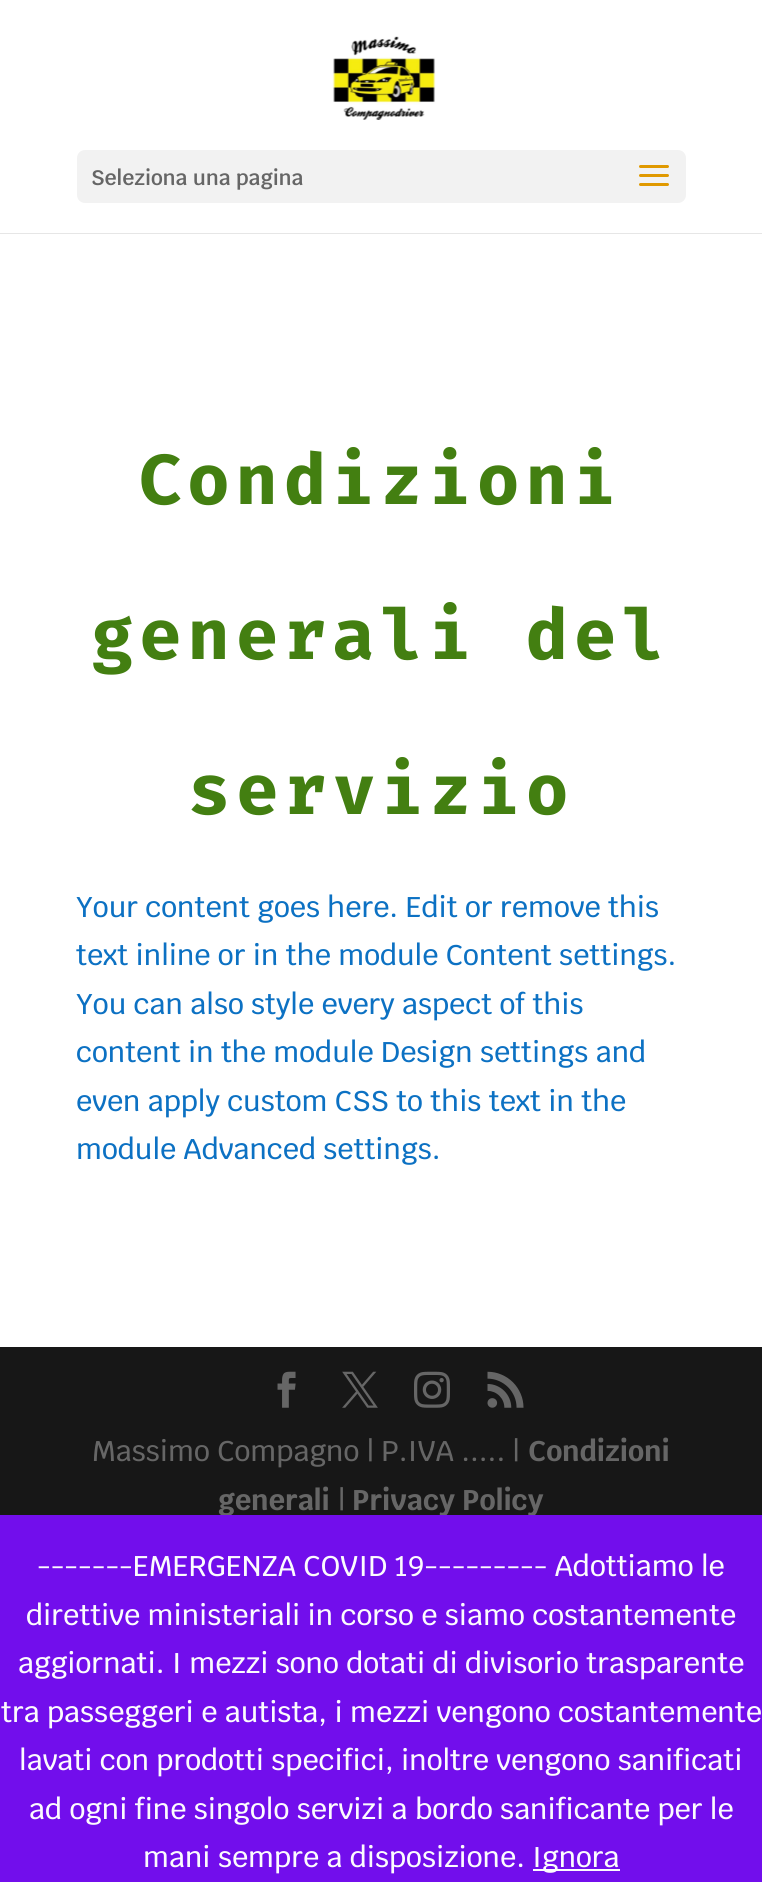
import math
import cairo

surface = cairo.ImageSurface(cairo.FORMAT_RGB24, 762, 1882)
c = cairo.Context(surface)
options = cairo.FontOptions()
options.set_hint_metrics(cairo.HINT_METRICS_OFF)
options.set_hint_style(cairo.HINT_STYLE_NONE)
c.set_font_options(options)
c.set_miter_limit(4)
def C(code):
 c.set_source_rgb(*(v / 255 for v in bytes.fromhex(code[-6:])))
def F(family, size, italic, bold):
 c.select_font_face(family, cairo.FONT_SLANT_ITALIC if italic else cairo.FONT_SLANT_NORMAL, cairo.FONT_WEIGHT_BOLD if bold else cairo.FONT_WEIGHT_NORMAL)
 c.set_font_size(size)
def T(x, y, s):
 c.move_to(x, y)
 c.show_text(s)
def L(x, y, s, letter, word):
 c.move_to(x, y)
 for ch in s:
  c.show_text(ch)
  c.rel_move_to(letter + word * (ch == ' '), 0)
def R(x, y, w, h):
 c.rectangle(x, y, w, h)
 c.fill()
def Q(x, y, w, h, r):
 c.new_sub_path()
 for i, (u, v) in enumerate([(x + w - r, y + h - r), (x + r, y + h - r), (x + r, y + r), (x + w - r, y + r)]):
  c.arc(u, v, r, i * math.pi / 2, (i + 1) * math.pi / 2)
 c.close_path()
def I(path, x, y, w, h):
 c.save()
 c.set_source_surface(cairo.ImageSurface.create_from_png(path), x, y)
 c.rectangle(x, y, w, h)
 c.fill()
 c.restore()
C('171717')
c.paint()
C('e6e6e6')
R(0,233,762,1)
C('ffffff')
R(0,0,762,233)
I('1.png',332,36,104,84)
C('f2f2f2')
Q(77,150,609,53,8)
c.fill()
F('Krub SemiBold',21,0,0)
C('666666')
T(91,185,'Seleziona una pagina')
I('2.png',639,165,30,21)
C('ffffff')
R(0,234,762,1113)
F('Fira Mono',70.5,0,1)
C('437f11')
L(139,504,'Condizioni',6,0)
L(91,659,'generali del',6,0)
L(188,814,'servizio',6,0)
F('Krub Medium',28.5,0,0)
C('0c71c3')
T(76,917,'Your content goes here. Edit or remove this')
T(76,965,'text inline or in the module Content settings.')
T(76,1014,'You can also style every aspect of this')
T(76,1062,'content in the module Design settings and')
T(76,1111,'even apply custom CSS to this text in the')
T(76,1159,'module Advanced settings.')
I('3.png',277,1371,19,37)
I('4.png',342,1371,36,37)
I('5.png',414,1371,36,37)
I('6.png',487,1371,37,37)
C('666666')
T(92,1461,'Massimo Compagno | P.IVA ..... |')
F('Krub',28.5,0,1)
T(528,1461,'Condizioni')
T(218,1510,'generali')
F('Krub Medium',28.5,0,0)
T(338,1510,'|')
F('Krub',28.5,0,1)
T(352,1510,'Privacy Policy')
C('720eec')
R(0,1515,762,367)
F('Krub Medium',28.5,0,0)
C('fcfbfe')
T(37,1576,'-------EMERGENZA COVID 19--------- Adottiamo le')
T(26,1625,'direttive ministeriali in corso e siamo costantemente')
T(18,1673,'aggiornati. I mezzi sono dotati di divisorio trasparente')
T(1,1722,'tra passeggeri e autista, i mezzi vengono costantemente')
T(19,1770,'lavati con prodotti specifici, inoltre vengono sanificati')
T(29,1819,'ad ogni fine singolo servizi a bordo sanificante per le')
T(143,1867,'mani sempre a disposizione.')
R(533,1869,87,2)
T(532,1867,'Ignora')
surface.write_to_png('o.png')
